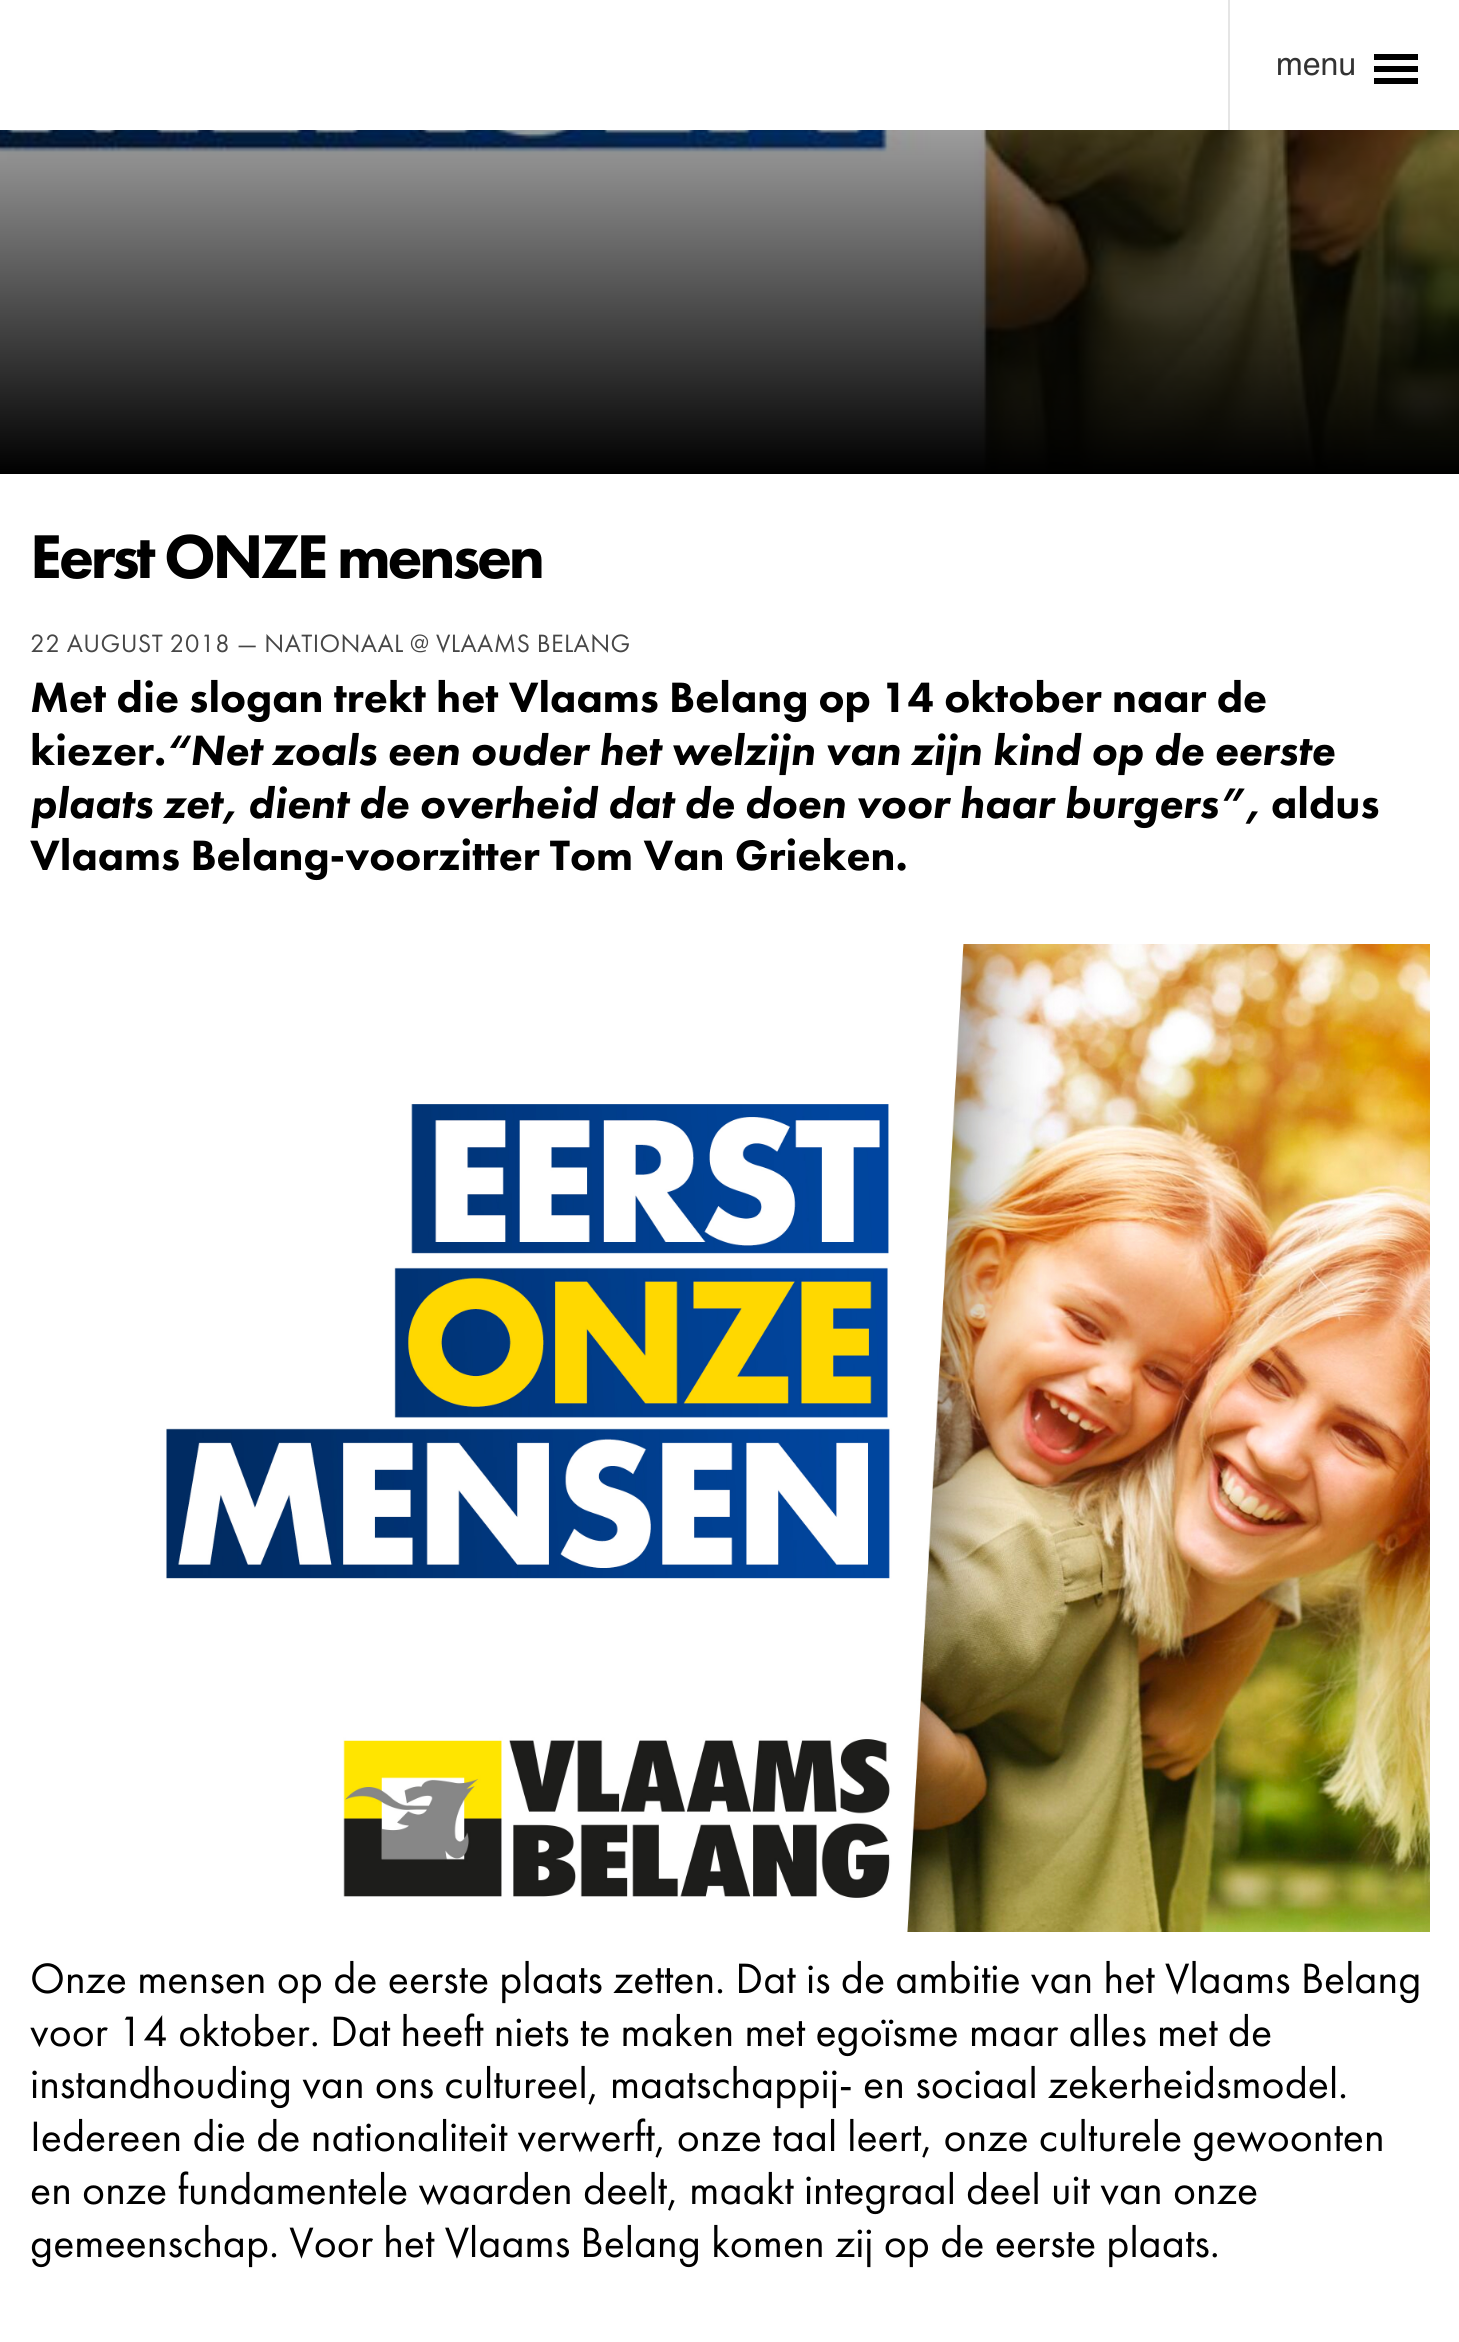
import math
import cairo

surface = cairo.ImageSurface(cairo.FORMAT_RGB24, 1459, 2342)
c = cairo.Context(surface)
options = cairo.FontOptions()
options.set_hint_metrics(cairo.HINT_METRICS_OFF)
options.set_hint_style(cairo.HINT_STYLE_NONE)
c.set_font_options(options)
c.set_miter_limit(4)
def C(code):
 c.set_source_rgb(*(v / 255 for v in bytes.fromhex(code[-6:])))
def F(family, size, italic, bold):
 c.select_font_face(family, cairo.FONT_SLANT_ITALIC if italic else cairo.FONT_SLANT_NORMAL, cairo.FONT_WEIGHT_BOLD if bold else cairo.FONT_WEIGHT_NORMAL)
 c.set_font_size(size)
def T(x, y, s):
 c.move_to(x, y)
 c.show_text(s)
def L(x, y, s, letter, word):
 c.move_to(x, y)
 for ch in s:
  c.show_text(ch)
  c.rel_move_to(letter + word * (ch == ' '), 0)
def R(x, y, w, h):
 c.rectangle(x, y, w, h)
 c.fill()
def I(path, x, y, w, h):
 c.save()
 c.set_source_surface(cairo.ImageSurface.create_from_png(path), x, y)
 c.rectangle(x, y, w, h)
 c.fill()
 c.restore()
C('ffffff')
c.paint()
C('e5e5e5')
R(1228,0,2,130)
F('Helvetica',32,0,0)
C('333333')
T(1276,75,'menu')
C('000000')
R(1374,54,44,6)
R(1374,66,44,6)
R(1374,78,44,6)
I('1.png',0,130,1459,344)
F('Futura PT Black',64,0,0)
L(30,578,'Eerst ONZE mensen',-3.25,0)
F('Futura PT',26,0,0)
C('464646')
L(30,652,'22 AUGUST 2018 — NATIONAAL @ VLAAMS BELANG',.4,0)
F('Futura PT Black',44,0,0)
C('000000')
T(30,712,'Met die slogan trekt het Vlaams Belang op 14 oktober naar de')
T(30,765,'kiezer.')
F('Futura PT Black',44,1,0)
T(166,765,'“Net zoals een ouder het welzijn van zijn kind op de eerste')
T(30,818,'plaats zet, dient de overheid dat de doen voor haar burgers”,')
F('Futura PT Black',44,0,0)
T(1271,818,'aldus')
T(30,870,'Vlaams Belang-voorzitter Tom Van Grieken.')
I('2.png',166,944,1264,988)
F('Futura PT',44,0,0)
T(30,1993,'Onze mensen op de eerste plaats zetten. Dat is de ambitie van het Vlaams Belang')
T(30,2046,'voor 14 oktober. Dat heeft niets te maken met egoïsme maar alles met de')
T(30,2098,'instandhouding van ons cultureel, maatschappij- en sociaal zekerheidsmodel.')
T(30,2151,'Iedereen die de nationaliteit verwerft, onze taal leert, onze culturele gewoonten')
T(30,2204,'en onze fundamentele waarden deelt, maakt integraal deel uit van onze')
T(30,2257,'gemeenschap. Voor het Vlaams Belang komen zij op de eerste plaats.')
surface.write_to_png('o.png')
